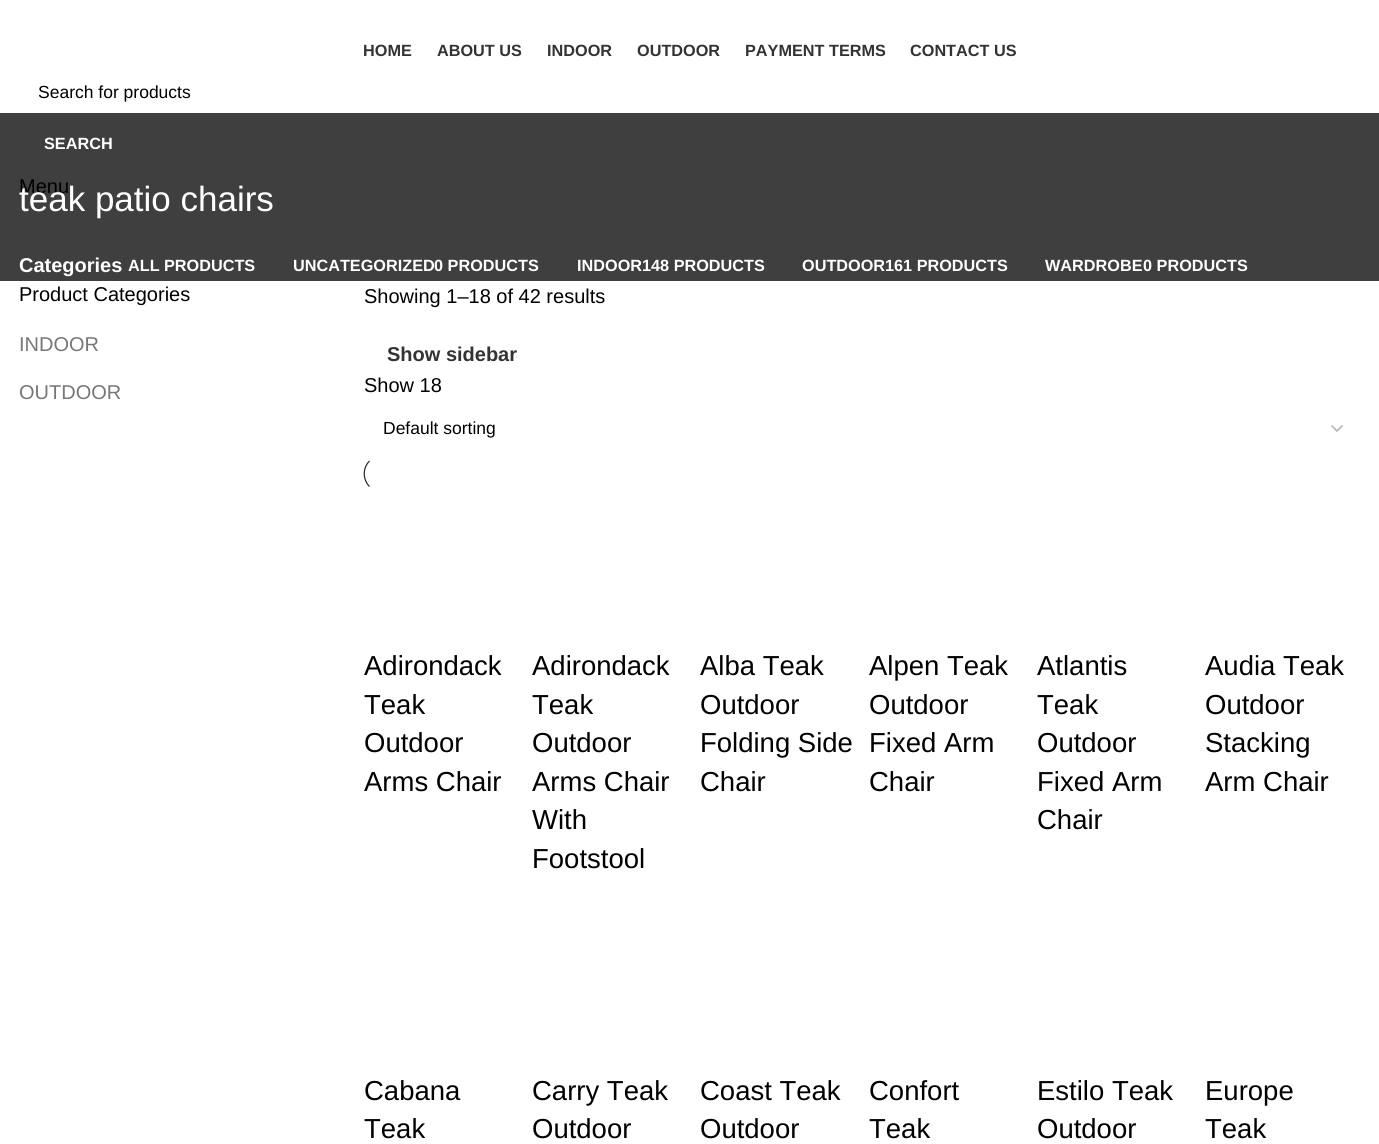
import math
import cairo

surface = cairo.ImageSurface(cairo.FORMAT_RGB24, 1379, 1144)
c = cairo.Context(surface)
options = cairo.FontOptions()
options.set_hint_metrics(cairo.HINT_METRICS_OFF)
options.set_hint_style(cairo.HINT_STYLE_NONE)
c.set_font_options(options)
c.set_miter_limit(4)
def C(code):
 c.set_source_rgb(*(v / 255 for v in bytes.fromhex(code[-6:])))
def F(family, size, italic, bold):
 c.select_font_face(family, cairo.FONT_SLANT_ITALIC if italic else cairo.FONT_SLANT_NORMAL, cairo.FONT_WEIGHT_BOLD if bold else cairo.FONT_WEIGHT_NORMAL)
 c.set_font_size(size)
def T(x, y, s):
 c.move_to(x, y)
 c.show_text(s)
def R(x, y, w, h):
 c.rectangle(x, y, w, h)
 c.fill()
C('ffffff')
c.paint()
F('Liberation Sans',16.25,0,1)
C('333333')
T(363,56,'HOME')
T(437,56,'ABOUT US')
T(547,56,'INDOOR')
T(637,56,'OUTDOOR')
T(745,56,'PAYMENT TERMS')
T(910,56,'CONTACT US')
F('Liberation Sans',17.5,0,0)
C('000000')
T(38,98,'Search for products')
C('3f3f3f')
R(0,113,1379,168)
F('Liberation Sans',16.25,0,1)
C('ffffff')
T(44,149,'SEARCH')
F('Liberation Sans',20,0,0)
C('000000')
T(19,193,'Menu')
F('Liberation Sans',35,0,0)
C('ffffff')
T(19,211,'teak patio chairs')
F('Liberation Sans',20,0,1)
T(19,272,'Categories')
F('Liberation Sans',16.25,0,1)
T(128,271,'ALL')
T(164,271,'PRODUCTS')
T(293,271,'UNCATEGORIZED')
T(434,271,'0 PRODUCTS')
T(577,271,'INDOOR')
T(642,271,'148 PRODUCTS')
T(802,271,'OUTDOOR')
T(885,271,'161 PRODUCTS')
T(1045,271,'WARDROBE')
T(1143,271,'0 PRODUCTS')
F('Liberation Sans',20,0,0)
C('000000')
T(19,301,'Product Categories')
C('777777')
T(19,351,'INDOOR')
T(19,399,'OUTDOOR')
C('000000')
T(364,303,'Showing 1–18 of 42 results')
F('Liberation Sans',20,0,1)
C('333333')
T(387,361,'Show sidebar')
F('Liberation Sans',20,0,0)
C('000000')
T(364,392,'Show 18')
c.new_path()
c.move_to(1331.5,425.5)
c.line_to(1337,431)
c.line_to(1342.5,425.5)
C('bbbbbb')
c.set_line_width(1.8)
c.stroke()
F('Liberation Sans',17.5,0,0)
C('000000')
T(383,434,'Default sorting')
c.new_path()
c.move_to(369.5,486.5)
c.curve_to(362.5,479.5,362.5,468,369.5,461)
C('242424')
c.set_line_width(1.2)
c.stroke()
F('Liberation Sans',27.5,0,0)
C('000000')
T(364,675,'Adirondack')
T(364,714,'Teak')
T(364,752,'Outdoor')
T(364,791,'Arms Chair')
T(532,675,'Adirondack')
T(532,714,'Teak')
T(532,752,'Outdoor')
T(532,791,'Arms Chair')
T(532,829,'With')
T(532,868,'Footstool')
T(700,675,'Alba Teak')
T(700,714,'Outdoor')
T(700,752,'Folding Side')
T(700,791,'Chair')
T(869,675,'Alpen Teak')
T(869,714,'Outdoor')
T(869,752,'Fixed Arm')
T(869,791,'Chair')
T(1037,675,'Atlantis')
T(1037,714,'Teak')
T(1037,752,'Outdoor')
T(1037,791,'Fixed Arm')
T(1037,829,'Chair')
T(1205,675,'Audia Teak')
T(1205,714,'Outdoor')
T(1205,752,'Stacking')
T(1205,791,'Arm Chair')
T(364,1100,'Cabana')
T(364,1138,'Teak')
T(532,1100,'Carry Teak')
T(532,1138,'Outdoor')
T(700,1100,'Coast Teak')
T(700,1138,'Outdoor')
T(869,1100,'Confort')
T(869,1138,'Teak')
T(1037,1100,'Estilo Teak')
T(1037,1138,'Outdoor')
T(1205,1100,'Europe')
T(1205,1138,'Teak')
surface.write_to_png('o.png')
